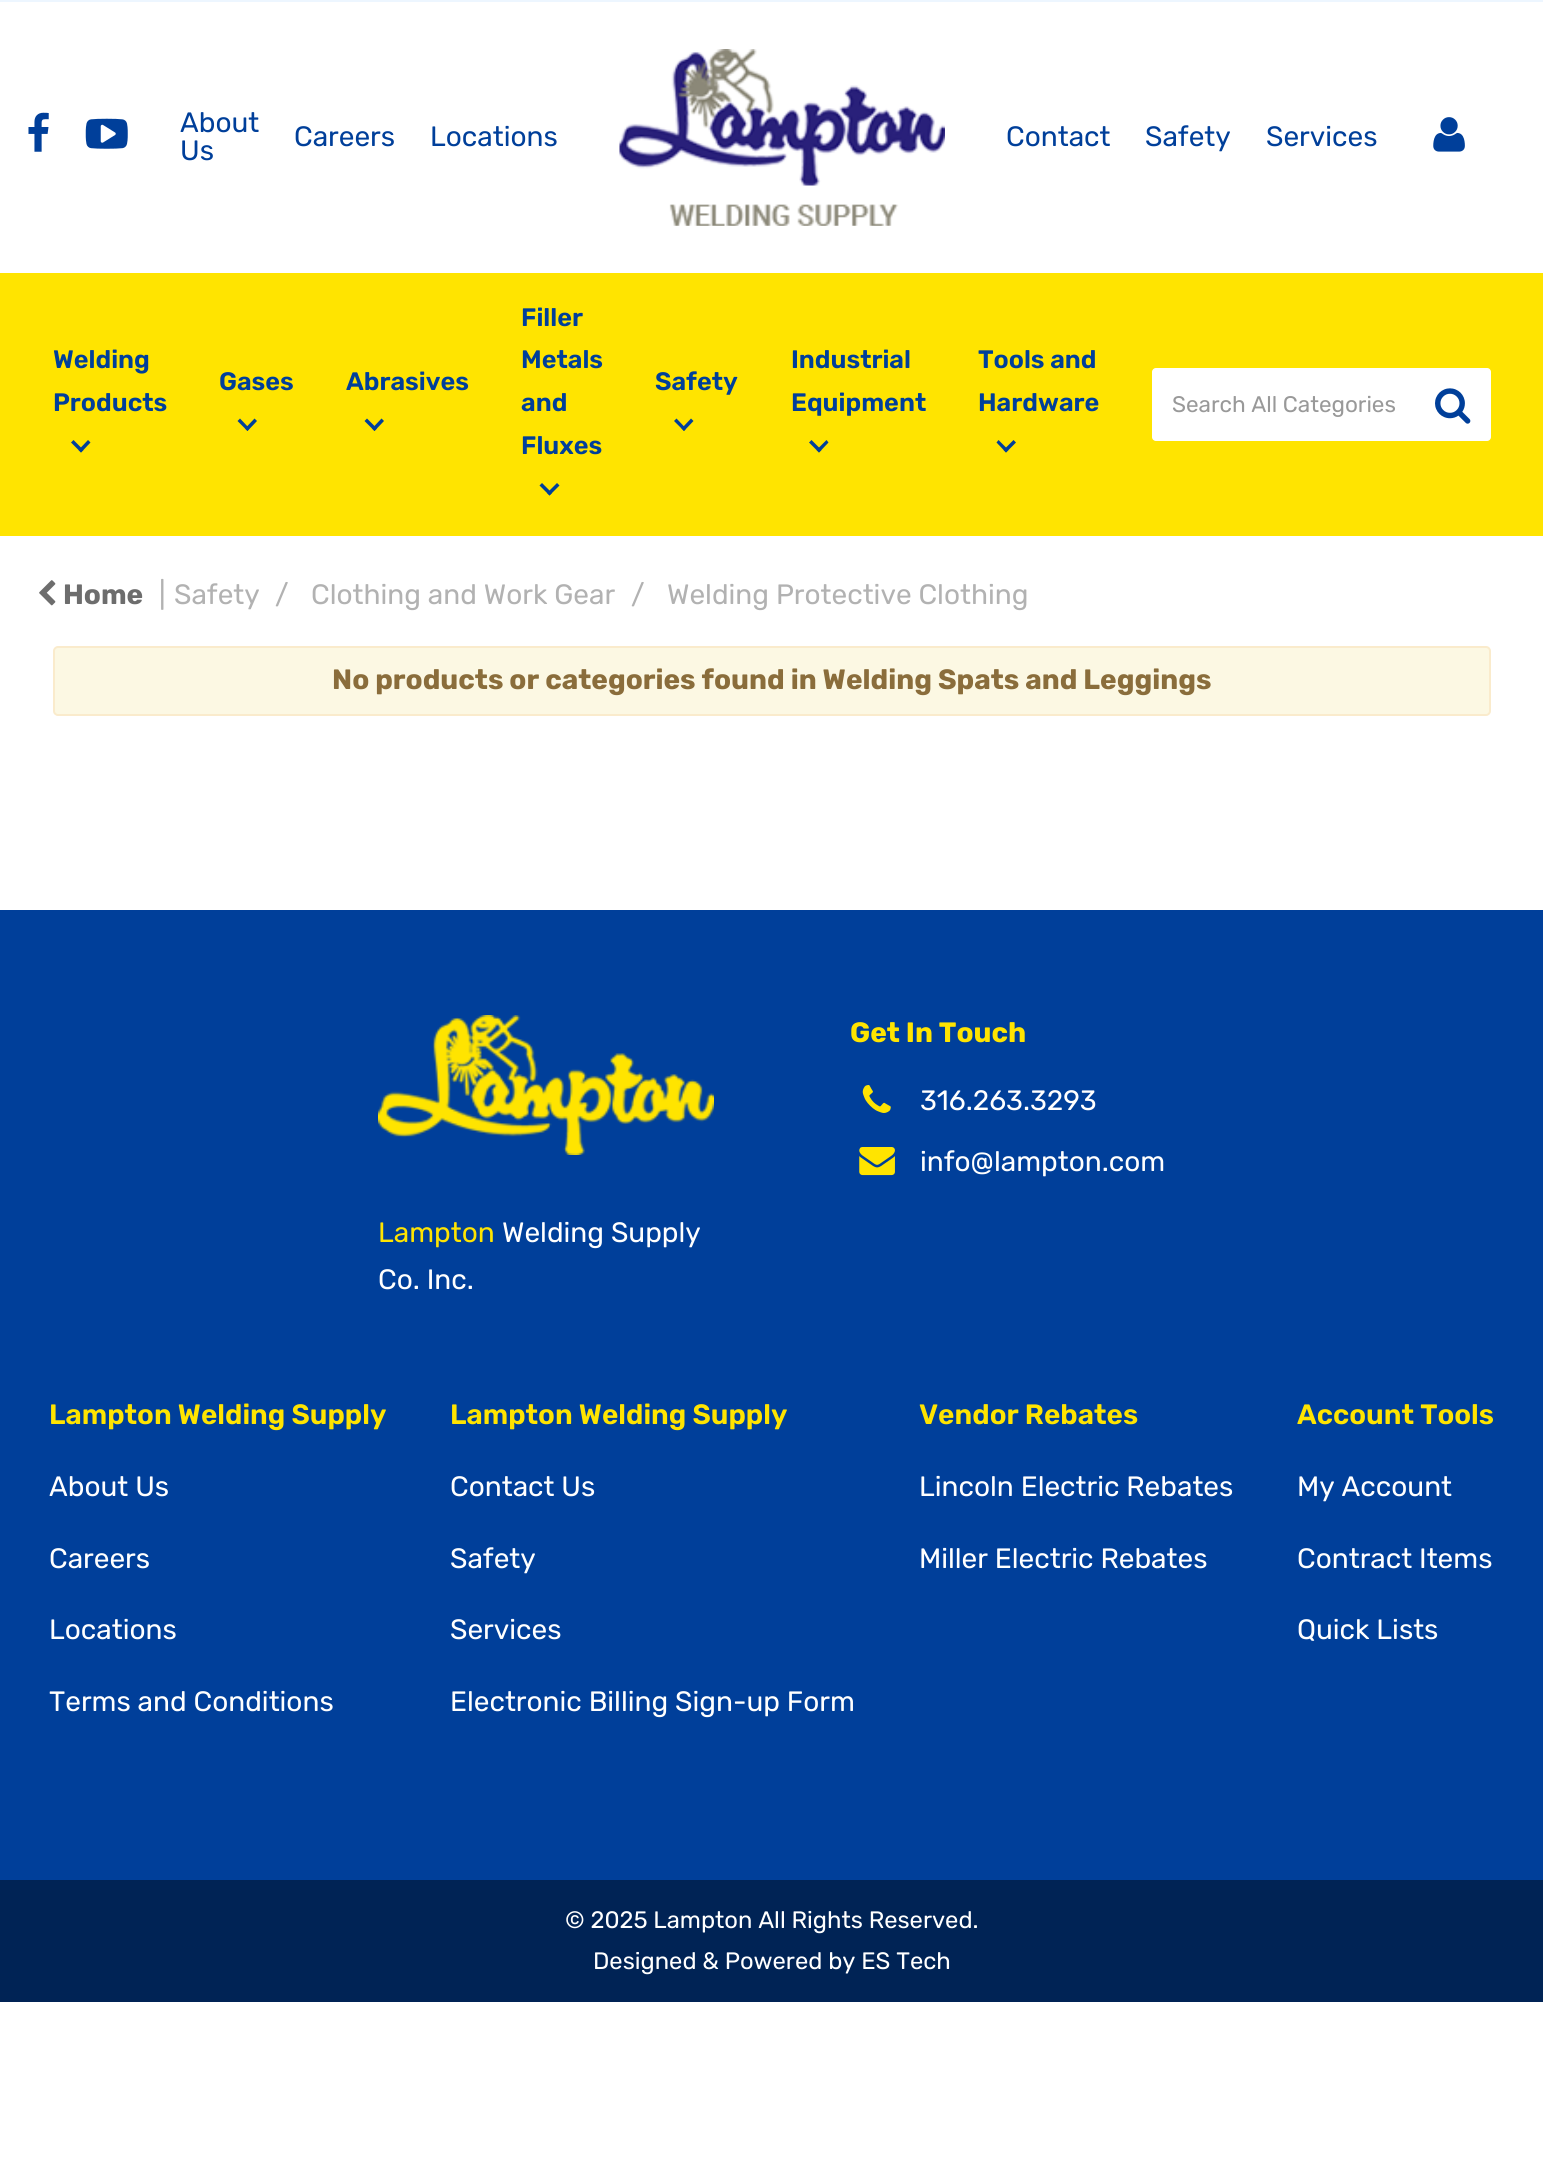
import math
import cairo

surface = cairo.ImageSurface(cairo.FORMAT_RGB24, 1543, 2177)
c = cairo.Context(surface)
options = cairo.FontOptions()
options.set_hint_metrics(cairo.HINT_METRICS_OFF)
options.set_hint_style(cairo.HINT_STYLE_NONE)
c.set_font_options(options)
c.set_miter_limit(4)
def C(code):
 c.set_source_rgb(*(v / 255 for v in bytes.fromhex(code[-6:])))
def F(family, size, italic, bold):
 c.select_font_face(family, cairo.FONT_SLANT_ITALIC if italic else cairo.FONT_SLANT_NORMAL, cairo.FONT_WEIGHT_BOLD if bold else cairo.FONT_WEIGHT_NORMAL)
 c.set_font_size(size)
def T(x, y, s):
 c.move_to(x, y)
 c.show_text(s)
def R(x, y, w, h):
 c.rectangle(x, y, w, h)
 c.fill()
def Q(x, y, w, h, r):
 c.new_sub_path()
 for i, (u, v) in enumerate([(x + w - r, y + h - r), (x + r, y + h - r), (x + r, y + r), (x + w - r, y + r)]):
  c.arc(u, v, r, i * math.pi / 2, (i + 1) * math.pi / 2)
 c.close_path()
def I(path, x, y, w, h):
 c.save()
 c.set_source_surface(cairo.ImageSurface.create_from_png(path), x, y)
 c.rectangle(x, y, w, h)
 c.fill()
 c.restore()
C('ffffff')
c.paint()
C('edf6ff')
R(0,0,1543,2)
I('1.png',28,112,21,40)
I('2.png',85,118,43,31)
F('Rubik',28,0,0)
C('003f9a')
T(180,132,'About')
T(180,160,'Us')
T(294,146,'Careers')
T(430,146,'Locations')
I('3.png',619,49,326,177)
T(1006,146,'Contact')
T(1145,146,'Safety')
T(1266,146,'Services')
I('4.png',1433,117,32,35)
C('ffe400')
R(0,273,1543,263)
F('Rubik SemiBold',25.25,0,0)
C('003f9a')
T(53,368,'Welding')
T(53,411,'Products')
c.new_path()
c.move_to(88,440)
c.line_to(90.5,442.5)
c.line_to(81,452.5)
c.line_to(78.5,450)
c.close_path()
c.fill()
c.new_path()
c.move_to(73.5,440)
c.line_to(83.5,450)
c.line_to(81,452.5)
c.line_to(71,442.5)
c.close_path()
c.fill()
T(219,390,'Gases')
c.new_path()
c.move_to(254.5,418.5)
c.line_to(257,421)
c.line_to(247.5,431)
c.line_to(245,428.5)
c.close_path()
c.fill()
c.new_path()
c.move_to(240,418.5)
c.line_to(249.5,428.5)
c.line_to(247.5,431)
c.line_to(237.5,421)
c.close_path()
c.fill()
T(346,390,'Abrasives')
c.new_path()
c.move_to(381.5,418.5)
c.line_to(384,421)
c.line_to(374.5,431)
c.line_to(372,428.5)
c.close_path()
c.fill()
c.new_path()
c.move_to(367,418.5)
c.line_to(377,428.5)
c.line_to(374.5,431)
c.line_to(364.5,421)
c.close_path()
c.fill()
T(521,326,'Filler')
T(521,368,'Metals')
T(521,411,'and')
T(521,454,'Fluxes')
c.new_path()
c.move_to(557,483)
c.line_to(559.5,485.5)
c.line_to(549.5,495.5)
c.line_to(547,493)
c.close_path()
c.fill()
c.new_path()
c.move_to(542,483)
c.line_to(552,493)
c.line_to(549.5,495.5)
c.line_to(539.5,485.5)
c.close_path()
c.fill()
T(655,390,'Safety')
c.new_path()
c.move_to(691,418.5)
c.line_to(693.5,421)
c.line_to(684,431)
c.line_to(681.5,428.5)
c.close_path()
c.fill()
c.new_path()
c.move_to(676.5,418.5)
c.line_to(686,428.5)
c.line_to(684,431)
c.line_to(674,421)
c.close_path()
c.fill()
T(791,368,'Industrial')
T(791,411,'Equipment')
c.new_path()
c.move_to(826.5,440)
c.line_to(828.5,442.5)
c.line_to(819,452.5)
c.line_to(816.5,450)
c.close_path()
c.fill()
c.new_path()
c.move_to(811.5,440)
c.line_to(821.5,450)
c.line_to(819,452.5)
c.line_to(809,442.5)
c.close_path()
c.fill()
T(978,368,'Tools and')
T(978,411,'Hardware')
c.new_path()
c.move_to(1013.5,440)
c.line_to(1016,442.5)
c.line_to(1006,452.5)
c.line_to(1003.5,450)
c.close_path()
c.fill()
c.new_path()
c.move_to(998.5,440)
c.line_to(1008.5,450)
c.line_to(1006,452.5)
c.line_to(996.5,442.5)
c.close_path()
c.fill()
C('ffffff')
Q(1152,368,339,73,4)
c.fill()
F('Rubik',22.5,0,0)
C('999999')
T(1172,412,'Search All Categories')
I('5.png',1435,388,36,36)
I('6.png',39,580,17,26)
F('Rubik',28,0,1)
C('6d6d6d')
T(63,604,'Home')
F('Rubik',28,0,0)
C('b2b2b2')
T(159,604,'|')
T(174,604,'Safety')
T(275,604,'/')
T(311,604,'Clothing and Work Gear')
T(631,604,'/')
T(667,604,'Welding Protective Clothing')
C('fcf8e3')
Q(54,647,1436,68,4)
c.fill_preserve()
C('faebcc')
c.stroke()
F('Rubik',28,0,1)
C('8a6d3b')
T(332,689,'No products or categories found in Welding Spats and Leggings')
C('003f9a')
R(0,910,1543,970)
C('ffe400')
T(850,1042,'Get In Touch')
I('7.png',862,1085,29,28)
F('Rubik',28,0,0)
C('ffffff')
T(920,1110,'316.263.3293')
I('8.png',859,1147,36,29)
T(920,1171,'info@lampton.com')
I('9.png',378,1015,336,140)
C('ffe400')
T(378,1242,'Lampton')
C('ffffff')
T(502,1242,'Welding Supply')
T(378,1289,'Co. Inc.')
F('Rubik SemiBold',28,0,0)
C('ffe400')
T(49,1424,'Lampton Welding Supply')
F('Rubik',28,0,0)
C('ffffff')
T(49,1496,'About Us')
T(49,1568,'Careers')
T(49,1639,'Locations')
T(49,1711,'Terms and Conditions')
F('Rubik SemiBold',28,0,0)
C('ffe400')
T(450,1424,'Lampton Welding Supply')
F('Rubik',28,0,0)
C('ffffff')
T(450,1496,'Contact Us')
T(450,1568,'Safety')
T(450,1639,'Services')
T(450,1711,'Electronic Billing Sign-up Form')
F('Rubik SemiBold',28,0,0)
C('ffe400')
T(919,1424,'Vendor Rebates')
F('Rubik',28,0,0)
C('ffffff')
T(919,1496,'Lincoln Electric Rebates')
T(919,1568,'Miller Electric Rebates')
F('Rubik SemiBold',28,0,0)
C('ffe400')
T(1297,1424,'Account Tools')
F('Rubik',28,0,0)
C('ffffff')
T(1297,1496,'My Account')
T(1297,1568,'Contract Items')
T(1297,1639,'Quick Lists')
C('002355')
R(0,1880,1543,122)
F('Rubik',23.75,0,0)
C('ffffff')
T(565,1928,'© 2025 Lampton All Rights Reserved.')
T(593,1969,'Designed & Powered by ES Tech')
surface.write_to_png('o.png')
